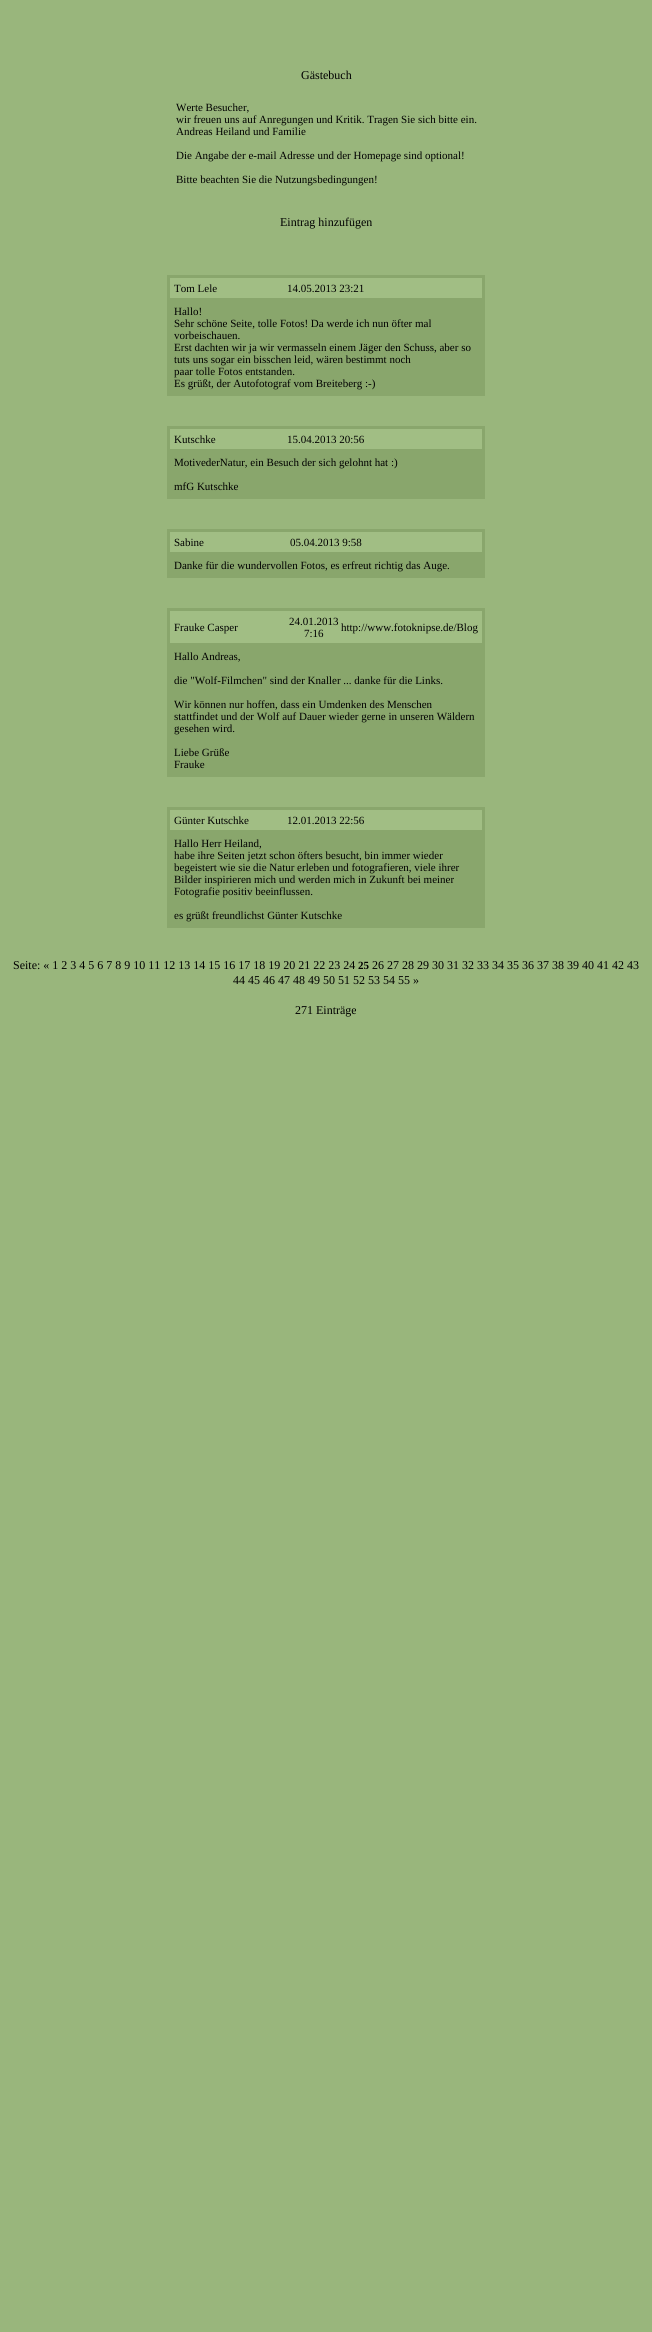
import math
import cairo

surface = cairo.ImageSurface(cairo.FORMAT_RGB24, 652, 2332)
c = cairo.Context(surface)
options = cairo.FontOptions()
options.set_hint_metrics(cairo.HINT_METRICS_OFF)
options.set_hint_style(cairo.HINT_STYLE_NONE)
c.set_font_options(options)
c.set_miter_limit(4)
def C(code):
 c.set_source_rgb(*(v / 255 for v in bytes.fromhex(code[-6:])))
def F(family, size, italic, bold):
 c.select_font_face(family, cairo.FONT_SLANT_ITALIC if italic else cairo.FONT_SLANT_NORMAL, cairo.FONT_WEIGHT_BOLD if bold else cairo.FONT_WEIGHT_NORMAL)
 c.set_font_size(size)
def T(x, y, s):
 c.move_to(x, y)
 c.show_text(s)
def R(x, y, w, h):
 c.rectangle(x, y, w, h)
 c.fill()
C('99b67c')
c.paint()
F('Liberation Serif',12,0,0)
C('000000')
T(301,79,'Gästebuch')
F('Liberation Serif',11,0,0)
T(176,111,'Werte Besucher,')
T(176,123,'wir freuen uns auf Anregungen und Kritik. Tragen Sie sich bitte ein.')
T(176,135,'Andreas Heiland und Familie')
T(176,159,'Die Angabe der e-mail Adresse und der Homepage sind optional!')
T(176,183,'Bitte beachten Sie die Nutzungsbedingungen!')
F('Liberation Serif',12,0,0)
T(280,226,'Eintrag hinzufügen')
C('89a66c')
R(167,275,318,121)
C('a1be84')
R(170,278,312,20)
F('Liberation Serif',11,0,0)
C('000000')
T(174,292,'Tom Lele')
T(287,292,'14.05.2013 23:21')
T(174,315,'Hallo!')
T(174,327,'Sehr schöne Seite, tolle Fotos! Da werde ich nun öfter mal')
T(174,339,'vorbeischauen.')
T(174,351,'Erst dachten wir ja wir vermasseln einem Jäger den Schuss, aber so')
T(174,363,'tuts uns sogar ein bisschen leid, wären bestimmt noch')
T(174,375,'paar tolle Fotos entstanden.')
T(174,387,'Es grüßt, der Autofotograf vom Breiteberg :-)')
C('89a66c')
R(167,426,318,73)
C('a1be84')
R(170,429,312,20)
C('000000')
T(174,443,'Kutschke')
T(287,443,'15.04.2013 20:56')
T(174,466,'MotivederNatur, ein Besuch der sich gelohnt hat :)')
T(174,490,'mfG Kutschke')
C('89a66c')
R(167,529,318,49)
C('a1be84')
R(170,532,312,20)
C('000000')
T(174,546,'Sabine')
T(290,546,'05.04.2013 9:58')
T(174,569,'Danke für die wundervollen Fotos, es erfreut richtig das Auge.')
C('89a66c')
R(167,608,318,169)
C('a1be84')
R(170,611,312,32)
C('000000')
T(174,631,'Frauke Casper')
T(289,625,'24.01.2013')
T(304,637,'7:16')
T(341,631,'http://www.fotoknipse.de/Blog')
T(174,660,'Hallo Andreas,')
T(174,684,'die "Wolf-Filmchen" sind der Knaller ... danke für die Links.')
T(174,708,'Wir können nur hoffen, dass ein Umdenken des Menschen')
T(174,720,'stattfindet und der Wolf auf Dauer wieder gerne in unseren Wäldern')
T(174,732,'gesehen wird.')
T(174,756,'Liebe Grüße')
T(174,768,'Frauke')
C('89a66c')
R(167,807,318,121)
C('a1be84')
R(170,810,312,20)
C('000000')
T(174,824,'Günter Kutschke')
T(287,824,'12.01.2013 22:56')
T(174,847,'Hallo Herr Heiland,')
T(174,859,'habe ihre Seiten jetzt schon öfters besucht, bin immer wieder')
T(174,871,'begeistert wie sie die Natur erleben und fotografieren, viele ihrer')
T(174,883,'Bilder inspirieren mich und werden mich in Zukunft bei meiner')
T(174,895,'Fotografie positiv beeinflussen.')
T(174,919,'es grüßt freundlichst Günter Kutschke')
F('Liberation Serif',12,0,0)
T(13,969,'Seite: « 1 2 3 4 5 6 7 8 9 10 11 12 13 14 15 16 17 18 19 20 21 22 23 24')
F('Liberation Serif',11,0,1)
T(358,969,'25')
F('Liberation Serif',12,0,0)
T(372,969,'26 27 28 29 30 31 32 33 34 35 36 37 38 39 40 41 42 43')
T(233,984,'44 45 46 47 48 49 50 51 52 53 54 55 »')
T(295,1014,'271 Einträge')
surface.write_to_png('o.png')
